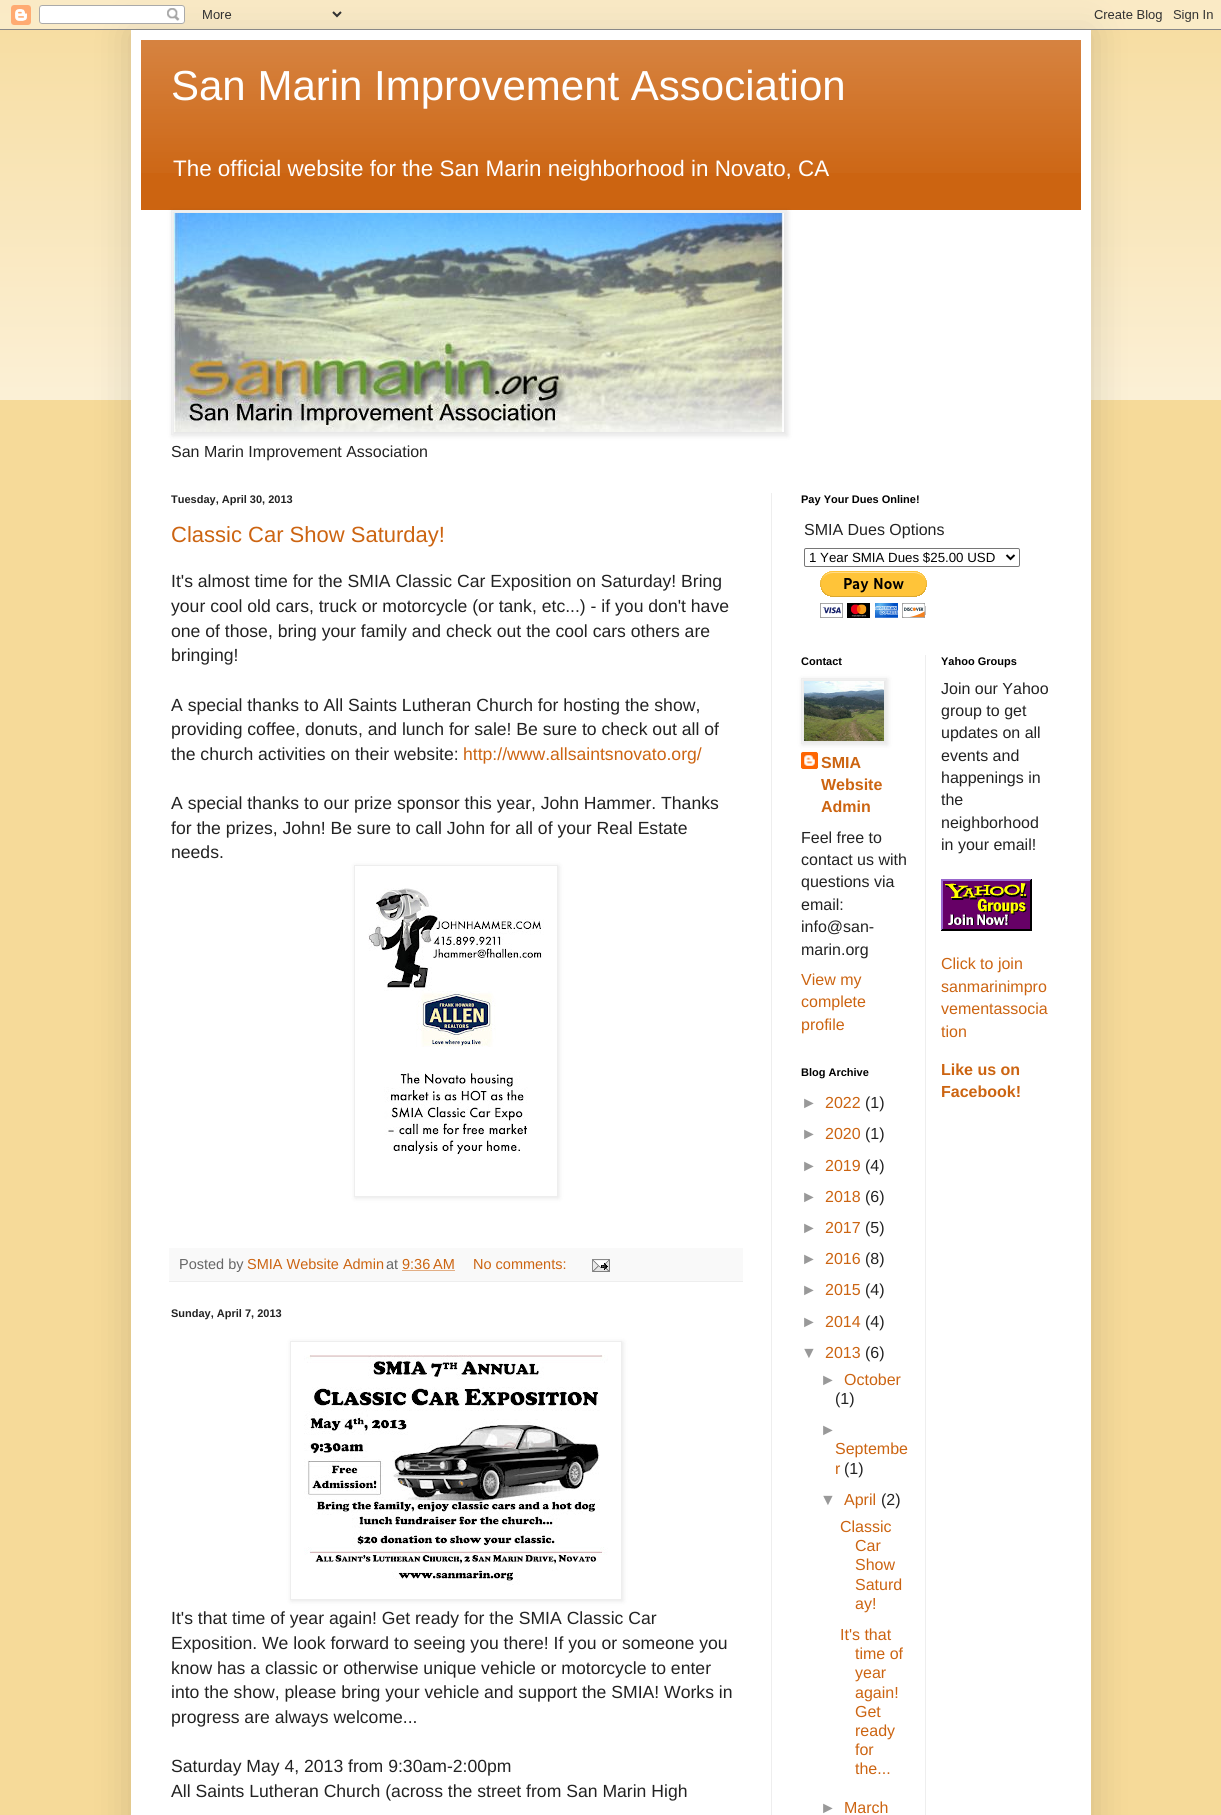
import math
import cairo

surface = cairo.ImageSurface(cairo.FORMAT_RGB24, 1221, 1815)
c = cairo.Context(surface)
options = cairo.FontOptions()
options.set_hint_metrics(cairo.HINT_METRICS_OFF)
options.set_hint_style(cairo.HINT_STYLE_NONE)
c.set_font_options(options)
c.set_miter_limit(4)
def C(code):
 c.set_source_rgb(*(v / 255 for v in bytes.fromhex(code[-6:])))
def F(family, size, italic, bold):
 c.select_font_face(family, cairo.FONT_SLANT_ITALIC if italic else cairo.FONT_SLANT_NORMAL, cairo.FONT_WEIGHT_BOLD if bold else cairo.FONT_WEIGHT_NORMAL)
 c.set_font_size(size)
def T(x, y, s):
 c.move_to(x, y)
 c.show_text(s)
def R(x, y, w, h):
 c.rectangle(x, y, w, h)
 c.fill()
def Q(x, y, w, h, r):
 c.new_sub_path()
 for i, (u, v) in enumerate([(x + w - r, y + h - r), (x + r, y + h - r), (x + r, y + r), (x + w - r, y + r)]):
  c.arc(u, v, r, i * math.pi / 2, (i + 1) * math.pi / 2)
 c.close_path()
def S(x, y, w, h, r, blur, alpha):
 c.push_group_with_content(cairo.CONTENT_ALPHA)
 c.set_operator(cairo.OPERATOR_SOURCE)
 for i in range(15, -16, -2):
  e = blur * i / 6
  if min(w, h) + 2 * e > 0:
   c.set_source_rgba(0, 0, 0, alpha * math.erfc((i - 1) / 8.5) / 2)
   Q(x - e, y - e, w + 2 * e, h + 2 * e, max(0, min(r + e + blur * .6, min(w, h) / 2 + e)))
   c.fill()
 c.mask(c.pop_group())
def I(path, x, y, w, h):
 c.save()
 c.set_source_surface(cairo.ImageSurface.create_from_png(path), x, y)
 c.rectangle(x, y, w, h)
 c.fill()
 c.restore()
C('f6da99')
c.paint()
I('1.png',0,0,1221,400)
C('000000')
S(131,30,960,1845,0,20,.15)
I('2.png',0,0,1221,30)
C('ffffff')
R(131,30,960,1785)
C('cc6411')
R(141,40,940,170)
I('3.png',141,40,940,133)
F('Liberation Sans',42,0,0)
C('ffffff')
T(171,100,'San Marin Improvement Association')
F('Liberation Sans',22.4,0,0)
T(173,176,'The official website for the San Marin neighborhood in Novato, CA')
C('000000')
S(172,211,616,225,0,2.5,.1)
c.rectangle(171.5,210.5,615,224)
C('eeeeee')
c.set_line_width(1)
c.stroke()
I('4.png',174,213,610,219)
F('Liberation Sans',16,0,0)
C('222222')
T(171,457,'San Marin Improvement Association')
C('eeeeee')
R(771,493,1,1322)
F('Liberation Sans',11,0,1)
C('222222')
T(171,503,'Tuesday, April 30, 2013')
F('Liberation Sans',22,0,0)
C('cc6411')
T(171,542,'Classic Car Show Saturday!')
F('Liberation Sans',17.6,0,0)
C('222222')
T(171,587,'It\'s almost time for the SMIA Classic Car Exposition on Saturday! Bring')
T(171,612,'your cool old cars, truck or motorcycle (or tank, etc...) - if you don\'t have')
T(171,637,'one of those, bring your family and check out the cool cars others are')
T(171,661,'bringing!')
T(171,711,'A special thanks to All Saints Lutheran Church for hosting the show,')
T(171,735,'providing coffee, donuts, and lunch for sale! Be sure to check out all of')
T(171,760,'the church activities on their website:')
C('cc6411')
T(463,760,'http://www.allsaintsnovato.org/')
C('222222')
T(171,809,'A special thanks to our prize sponsor this year, John Hammer. Thanks')
T(171,834,'for the prizes, John! Be sure to call John for all of your Real Estate')
T(171,858,'needs.')
c.save()
c.set_fill_rule(cairo.FILL_RULE_EVEN_ODD)
c.new_path()
c.move_to(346,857)
c.line_to(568,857)
c.line_to(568,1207)
c.line_to(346,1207)
c.close_path()
c.move_to(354,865)
c.line_to(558,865)
c.line_to(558,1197)
c.line_to(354,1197)
c.close_path()
c.clip()
C('000000')
S(355,866,204,332,0,2.5,.1)
c.restore()
c.rectangle(354.5,865.5,203,331)
C('eeeeee')
c.stroke()
I('5.png',368,888,176,271)
C('f9f9f9')
R(169,1248,574,33)
C('eeeeee')
R(169,1281,574,1)
F('Liberation Sans',14.5,0,0)
C('666666')
T(179,1269,'Posted by')
C('cc6411')
T(247,1269,'SMIA Website Admin')
C('666666')
T(386,1269,'at')
C('cc6411')
T(402,1269,'9:36 AM')
c.new_path()
c.move_to(402.5,1270.5)
c.line_to(455,1270.5)
c.set_dash([1,1])
c.stroke()
T(473,1269,'No comments:')
I('6.png',592,1259,18,13)
F('Liberation Sans',11,0,1)
C('222222')
T(171,1317,'Sunday, April 7, 2013')
c.save()
c.set_fill_rule(cairo.FILL_RULE_EVEN_ODD)
c.new_path()
c.move_to(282,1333)
c.line_to(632,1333)
c.line_to(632,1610)
c.line_to(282,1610)
c.close_path()
c.move_to(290,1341)
c.line_to(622,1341)
c.line_to(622,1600)
c.line_to(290,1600)
c.close_path()
c.clip()
C('000000')
S(291,1342,332,259,0,2.5,.1)
c.restore()
c.rectangle(290.5,1341.5,331,258)
C('eeeeee')
c.set_dash([])
c.stroke()
I('7.png',304,1355,304,230)
F('Liberation Sans',17.6,0,0)
C('222222')
T(171,1624,'It\'s that time of year again! Get ready for the SMIA Classic Car')
T(171,1649,'Exposition. We look forward to seeing you there! If you or someone you')
T(171,1674,'know has a classic or otherwise unique vehicle or motorcycle to enter')
T(171,1698,'into the show, please bring your vehicle and support the SMIA! Works in')
T(171,1723,'progress are always welcome...')
T(171,1772,'Saturday May 4, 2013 from 9:30am-2:00pm')
T(171,1797,'All Saints Lutheran Church (across the street from San Marin High')
F('Liberation Sans',11,0,1)
C('000000')
T(801,503,'Pay Your Dues Online!')
F('Liberation Sans',16,0,0)
C('222222')
T(804,535,'SMIA Dues Options')
Q(804.5,548.5,215,18,1.5)
C('767676')
c.stroke()
c.new_path()
c.move_to(1006.5,555)
c.line_to(1010.5,559)
c.line_to(1014.5,555)
C('000000')
c.set_line_width(2)
c.stroke()
F('Liberation Sans',13.3,0,0)
T(809,562,'1 Year SMIA Dues $25.00 USD')
I('8.png',820,571,107,47)
F('Liberation Sans',11,0,1)
T(801,665,'Contact')
I('10.png',801,752,17,17)
C('000000')
S(802,679,86,66,0,2.5,.1)
c.rectangle(801.5,678.5,85,65)
C('eeeeee')
c.set_line_width(1)
c.stroke()
I('9.png',804,681,80,60)
F('Liberation Sans',16,0,1)
C('cc6411')
T(821,768,'SMIA')
T(821,790,'Website')
T(821,812,'Admin')
F('Liberation Sans',16,0,0)
C('222222')
T(801,843,'Feel free to')
T(801,865,'contact us with')
T(801,887,'questions via')
T(801,910,'email:')
T(801,932,'info@san-')
T(801,955,'marin.org')
C('cc6411')
T(801,985,'View my')
T(801,1007,'complete')
T(801,1030,'profile')
F('Liberation Sans',11,0,1)
C('000000')
T(801,1076,'Blog Archive')
F('Liberation Sans',16,0,0)
C('999999')
T(801,1108,'►')
C('cc6411')
T(825,1108,'2022')
C('222222')
T(865,1108,'(1)')
C('999999')
T(801,1139,'►')
C('cc6411')
T(825,1139,'2020')
C('222222')
T(865,1139,'(1)')
C('999999')
T(801,1171,'►')
C('cc6411')
T(825,1171,'2019')
C('222222')
T(865,1171,'(4)')
C('999999')
T(801,1202,'►')
C('cc6411')
T(825,1202,'2018')
C('222222')
T(865,1202,'(6)')
C('999999')
T(801,1233,'►')
C('cc6411')
T(825,1233,'2017')
C('222222')
T(865,1233,'(5)')
C('999999')
T(801,1264,'►')
C('cc6411')
T(825,1264,'2016')
C('222222')
T(865,1264,'(8)')
C('999999')
T(801,1295,'►')
C('cc6411')
T(825,1295,'2015')
C('222222')
T(865,1295,'(4)')
C('999999')
T(801,1327,'►')
C('cc6411')
T(825,1327,'2014')
C('222222')
T(865,1327,'(4)')
C('999999')
T(801,1358,'▼')
C('cc6411')
T(825,1358,'2013')
C('222222')
T(865,1358,'(6)')
C('999999')
T(820,1385,'►')
C('cc6411')
T(844,1385,'October')
C('222222')
T(835,1404,'(1)')
C('999999')
T(820,1435,'►')
C('cc6411')
T(835,1454,'Septembe')
T(835,1474,'r')
C('222222')
T(844,1474,'(1)')
C('999999')
T(820,1505,'▼')
C('cc6411')
T(844,1505,'April')
C('222222')
T(881,1505,'(2)')
C('cc6411')
T(840,1532,'Classic')
T(855,1551,'Car')
T(855,1570,'Show')
T(855,1590,'Saturd')
T(855,1609,'ay!')
T(840,1640,'It\'s that')
T(855,1659,'time of')
T(855,1678,'year')
T(855,1698,'again!')
T(855,1717,'Get')
T(855,1736,'ready')
T(855,1755,'for')
T(855,1774,'the...')
C('999999')
T(820,1813,'►')
C('cc6411')
T(844,1813,'March')
C('eeeeee')
R(925,655,1,1160)
F('Liberation Sans',11,0,1)
C('000000')
T(941,665,'Yahoo Groups')
F('Liberation Sans',16,0,0)
C('222222')
T(941,694,'Join our Yahoo')
T(941,716,'group to get')
T(941,738,'updates on all')
T(941,761,'events and')
T(941,783,'happenings in')
T(941,805,'the')
T(941,828,'neighborhood')
T(941,850,'in your email!')
I('11.png',941,879,91,52)
C('cc6411')
T(941,969,'Click to join')
T(941,992,'sanmarinimpro')
T(941,1014,'vementassocia')
T(941,1037,'tion')
F('Liberation Sans',16,0,1)
T(941,1075,'Like us on')
T(941,1097,'Facebook!')
surface.write_to_png('o.png')
